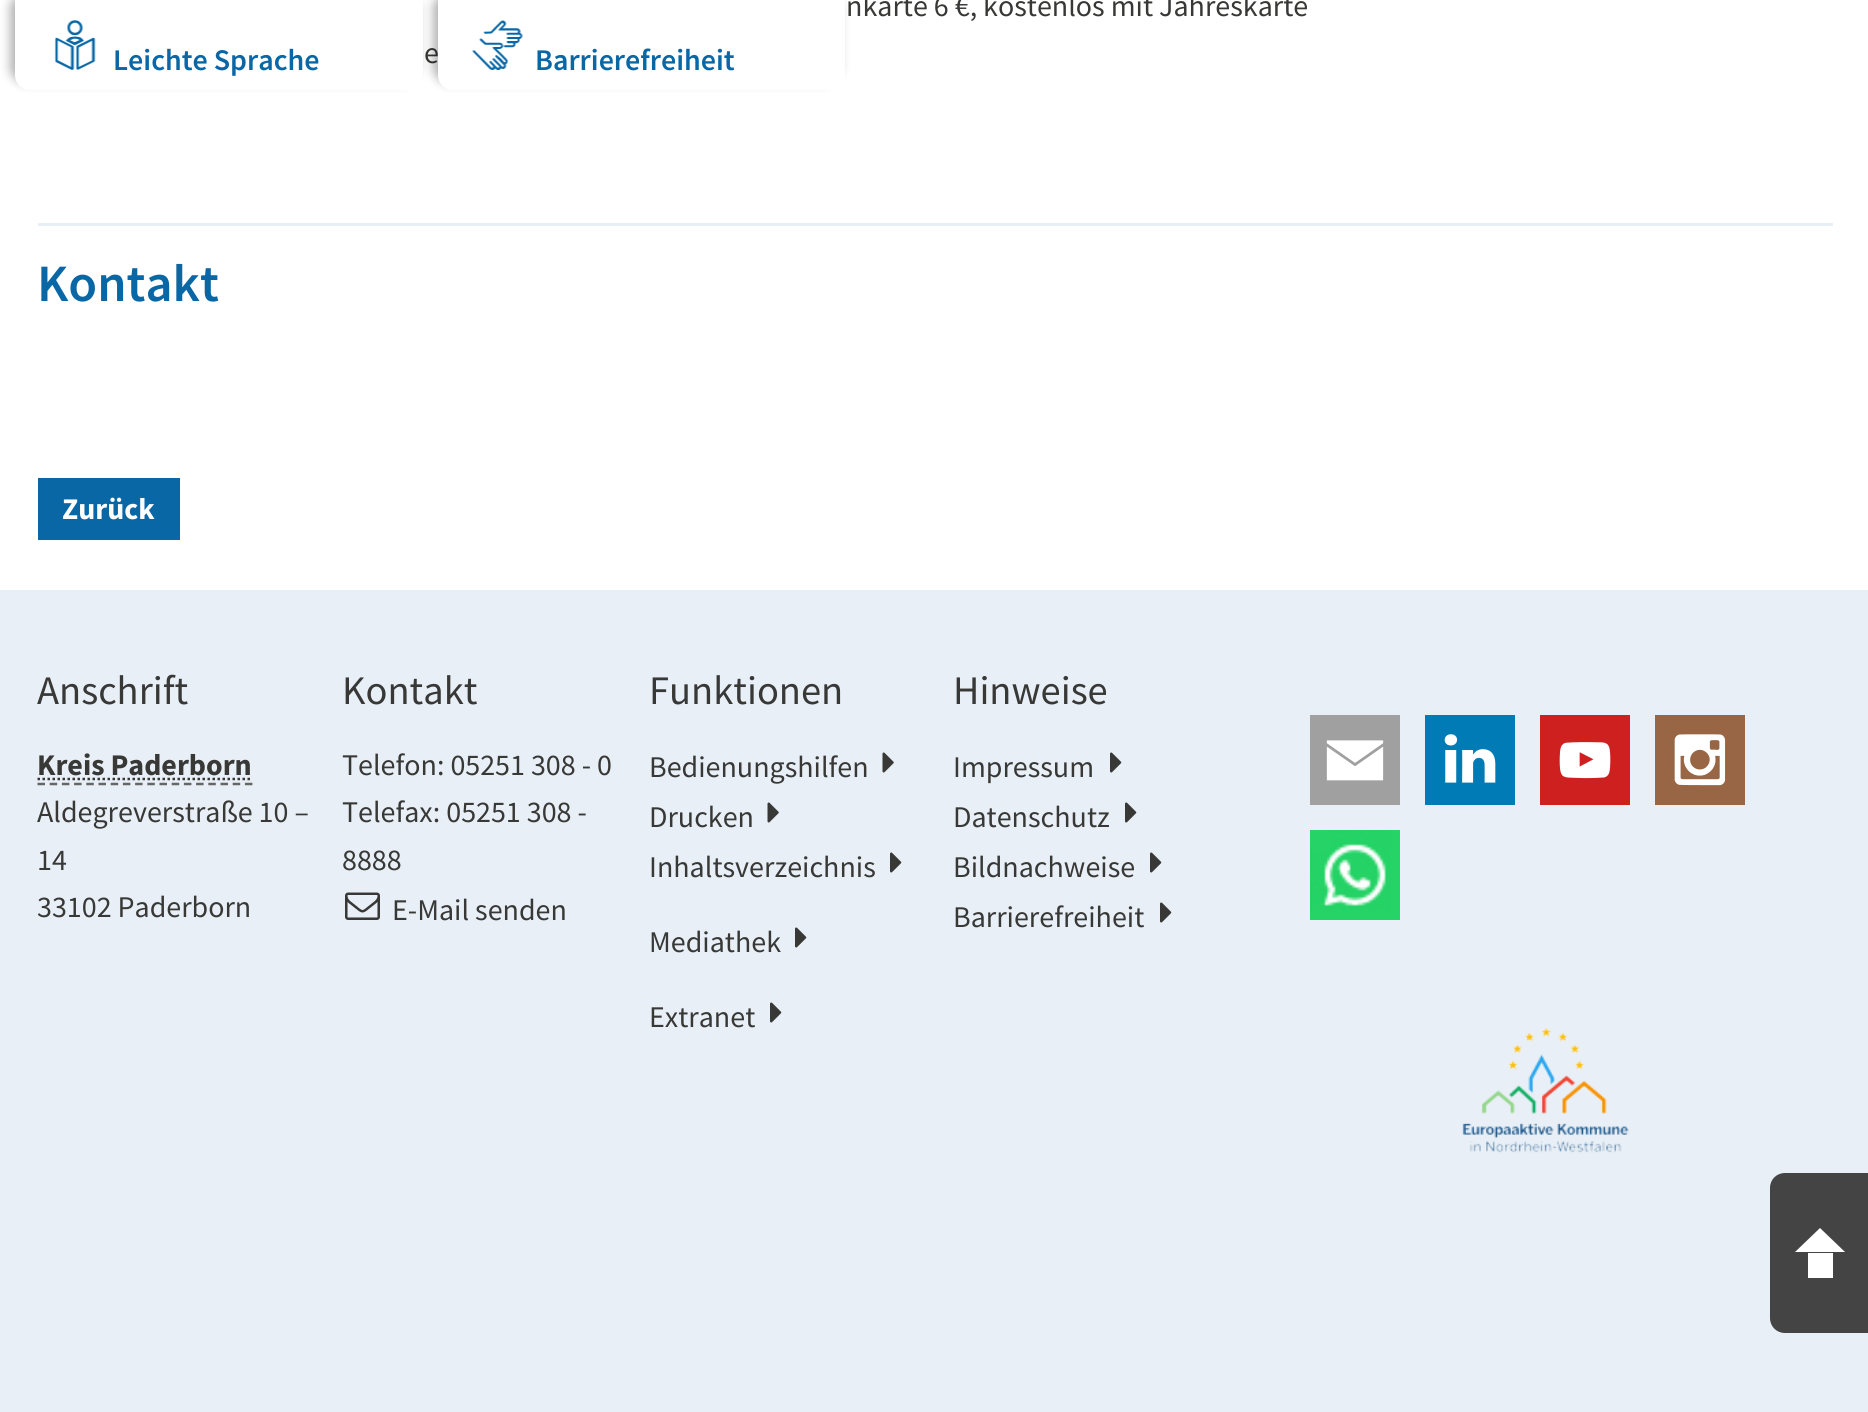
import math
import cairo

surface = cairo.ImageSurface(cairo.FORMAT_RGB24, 1868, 1412)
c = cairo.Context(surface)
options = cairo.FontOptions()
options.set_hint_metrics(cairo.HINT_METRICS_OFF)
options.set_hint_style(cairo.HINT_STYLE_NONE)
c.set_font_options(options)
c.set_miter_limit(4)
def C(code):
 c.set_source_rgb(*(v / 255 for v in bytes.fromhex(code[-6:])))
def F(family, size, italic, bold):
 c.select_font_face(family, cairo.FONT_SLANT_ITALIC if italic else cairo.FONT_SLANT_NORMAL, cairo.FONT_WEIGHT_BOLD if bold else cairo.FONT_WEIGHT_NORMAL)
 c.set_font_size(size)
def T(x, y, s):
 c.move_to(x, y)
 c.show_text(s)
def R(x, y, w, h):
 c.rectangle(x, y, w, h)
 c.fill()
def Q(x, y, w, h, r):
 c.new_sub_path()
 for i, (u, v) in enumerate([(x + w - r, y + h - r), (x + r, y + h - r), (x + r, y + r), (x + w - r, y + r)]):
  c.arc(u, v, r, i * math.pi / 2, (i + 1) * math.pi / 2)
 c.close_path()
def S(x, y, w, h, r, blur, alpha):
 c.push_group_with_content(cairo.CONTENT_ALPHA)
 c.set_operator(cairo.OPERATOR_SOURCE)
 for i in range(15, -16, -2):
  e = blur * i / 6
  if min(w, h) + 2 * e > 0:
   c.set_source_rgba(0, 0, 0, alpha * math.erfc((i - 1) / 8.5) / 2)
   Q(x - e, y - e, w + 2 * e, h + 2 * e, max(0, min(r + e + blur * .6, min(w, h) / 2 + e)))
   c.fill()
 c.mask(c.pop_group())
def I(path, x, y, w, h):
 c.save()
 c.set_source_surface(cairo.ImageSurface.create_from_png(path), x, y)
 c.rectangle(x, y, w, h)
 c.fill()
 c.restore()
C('ffffff')
c.paint()
F('Source Sans Pro',30,0,0)
C('383937')
T(846,16,'nkarte 6 €, kostenlos mit Jahreskarte')
T(424,63,'e')
C('e8eff6')
R(38,223,1795,3)
F('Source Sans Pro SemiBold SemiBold',52.5,0,0)
C('0a67a6')
T(37,301,'Kontakt')
R(38,478,142,62)
F('Source Sans Pro',30,0,1)
C('ffffff')
T(62,519,'Zurück')
C('000000')
S(10,-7,408,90,15,5,.3)
C('ffffff')
c.new_path()
c.move_to(15,0)
c.line_to(423,0)
c.line_to(423,75)
c.curve_to(423,83.5,416.5,90,408,90)
c.line_to(30,90)
c.curve_to(21.5,90,15,83.5,15,75)
c.close_path()
c.fill()
I('1.png',54,20,42,50)
F('Source Sans Pro SemiBold SemiBold',30,0,0)
C('0a67a6')
T(113,70,'Leichte Sprache')
C('000000')
S(433,-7,407,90,15,5,.3)
C('ffffff')
c.new_path()
c.move_to(438,0)
c.line_to(845,0)
c.line_to(845,75)
c.curve_to(845,83.5,838.5,90,830,90)
c.line_to(453,90)
c.curve_to(444.5,90,438,83.5,438,75)
c.close_path()
c.fill()
I('2.png',472,20,51,50)
C('0a67a6')
T(535,70,'Barrierefreiheit')
C('e8eff6')
R(0,590,1868,822)
F('Source Sans Pro',40.5,0,0)
C('383937')
T(37,704,'Anschrift')
F('Source Sans Pro',30,0,1)
T(37,775,'Kreis Paderborn')
c.new_path()
c.move_to(37.5,784)
c.line_to(252.5,784)
C('666666')
c.set_line_width(2.5)
c.set_dash([7.5,4.7])
c.stroke()
c.new_path()
c.move_to(37.5,779)
c.line_to(252,779)
C('383937')
c.set_dash([2.5,2.5])
c.stroke()
F('Source Sans Pro',30,0,0)
T(37,822,'Aldegreverstraße 10 –')
T(37,870,'14')
T(37,917,'33102 Paderborn')
F('Source Sans Pro',40.5,0,0)
T(342,704,'Kontakt')
F('Source Sans Pro',30,0,0)
T(342,775,'Telefon: 05251 308 - 0')
T(342,822,'Telefax: 05251 308 -')
T(342,870,'8888')
I('3.png',345,892,35,28)
T(392,920,'E-Mail senden')
F('Source Sans Pro',40.5,0,0)
T(649,704,'Funktionen')
F('Source Sans Pro',30,0,0)
T(649,777,'Bedienungshilfen')
I('4.png',882,752,12,21)
T(649,827,'Drucken')
I('4.png',767,802,12,21)
T(649,877,'Inhaltsverzeichnis')
I('5.png',890,852,12,21)
T(649,952,'Mediathek')
I('5.png',795,927,12,21)
T(649,1027,'Extranet')
I('5.png',770,1002,12,21)
F('Source Sans Pro',40.5,0,0)
T(953,704,'Hinweise')
F('Source Sans Pro',30,0,0)
T(953,777,'Impressum')
I('5.png',1110,752,12,21)
T(953,827,'Datenschutz')
I('5.png',1125,802,12,21)
T(953,877,'Bildnachweise')
I('5.png',1150,852,12,21)
T(953,927,'Barrierefreiheit')
I('5.png',1160,902,12,21)
C('a0a0a0')
R(1310,715,90,90)
I('6.png',1326,740,58,41)
C('007bb6')
R(1425,715,90,90)
I('7.png',1444,734,52,49)
C('cd201f')
R(1540,715,90,90)
I('8.png',1559,742,52,37)
C('986645')
R(1655,715,90,90)
I('9.png',1674,734,52,52)
I('10.png',1310,830,90,90)
I('11.png',1462,1027,167,126)
C('444444')
c.new_path()
c.move_to(1785,1173)
c.line_to(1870,1173)
c.line_to(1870,1333)
c.line_to(1785,1333)
c.curve_to(1776.5,1333,1770,1326.5,1770,1318)
c.line_to(1770,1188)
c.curve_to(1770,1179.5,1776.5,1173,1785,1173)
c.close_path()
c.fill()
C('ffffff')
c.new_path()
c.move_to(1845,1252)
c.line_to(1795,1252)
c.line_to(1820,1228)
c.close_path()
c.fill()
R(1808,1253,25,25)
surface.write_to_png('o.png')
